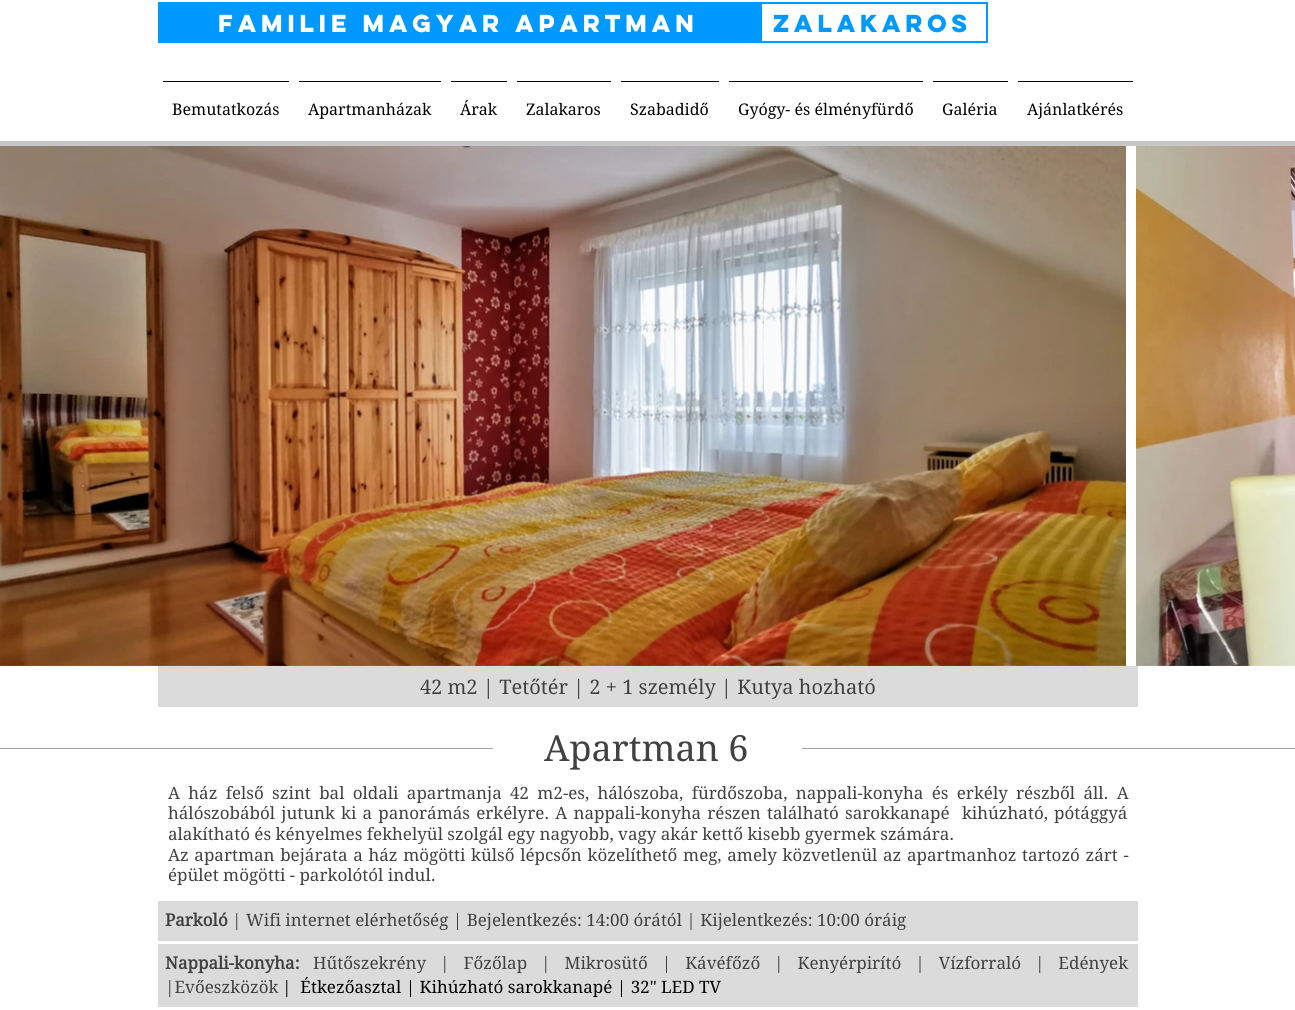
import math
import cairo

surface = cairo.ImageSurface(cairo.FORMAT_RGB24, 1295, 1010)
c = cairo.Context(surface)
options = cairo.FontOptions()
options.set_hint_metrics(cairo.HINT_METRICS_OFF)
options.set_hint_style(cairo.HINT_STYLE_NONE)
c.set_font_options(options)
c.set_miter_limit(4)
def C(code):
 c.set_source_rgb(*(v / 255 for v in bytes.fromhex(code[-6:])))
def F(family, size, italic, bold):
 c.select_font_face(family, cairo.FONT_SLANT_ITALIC if italic else cairo.FONT_SLANT_NORMAL, cairo.FONT_WEIGHT_BOLD if bold else cairo.FONT_WEIGHT_NORMAL)
 c.set_font_size(size)
def T(x, y, s):
 c.move_to(x, y)
 c.show_text(s)
def L(x, y, s, letter, word):
 c.move_to(x, y)
 for ch in s:
  c.show_text(ch)
  c.rel_move_to(letter + word * (ch == ' '), 0)
def R(x, y, w, h):
 c.rectangle(x, y, w, h)
 c.fill()
def I(path, x, y, w, h):
 c.save()
 c.set_source_surface(cairo.ImageSurface.create_from_png(path), x, y)
 c.rectangle(x, y, w, h)
 c.fill()
 c.restore()
C('ffffff')
c.paint()
C('0099ff')
R(158,2,604,41)
F('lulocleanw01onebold',22,0,1)
C('ffffff')
T(218,32,'FAMILIE MAGYAR APARTMAN')
c.rectangle(753,3,234,39)
C('0099ff')
c.stroke()
T(773,32,'ZALAKAROS')
C('000000')
R(163,81,126,1)
F('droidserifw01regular',16,0,0)
T(172,115,'Bemutatkozás')
R(299,81,142,1)
T(308,115,'Apartmanházak')
R(451,81,56,1)
T(460,115,'Árak')
R(517,81,94,1)
T(526,115,'Zalakaros')
R(621,81,98,1)
T(630,115,'Szabadidő')
R(729,81,194,1)
T(738,115,'Gyógy- és élményfürdő')
R(933,81,75,1)
T(942,115,'Galéria')
R(1018,81,115,1)
T(1027,115,'Ajánlatkérés')
C('c7c7c7')
R(0,141,1295,5)
I('1.png',0,146,1126,520)
I('2.png',1136,146,159,520)
C('dbdbdb')
R(158,666,980,41)
F('droidserifw01regular',20,0,0)
C('414141')
T(420,694,'42 m2 | Tetőtér | 2 + 1 személy | Kutya hozható')
C('a6a6a6')
R(0,748,493,1)
F('droidserifw01regular',36,0,0)
C('414141')
T(544,761,'Apartman 6')
C('a6a6a6')
R(802,748,493,1)
F('droidserifw01regular',17,0,0)
C('414141')
L(168,799,'A ház felső szint bal oldali apartmanja 42 m2-es, hálószoba, fürdőszoba, nappali-konyha és erkély részből áll. A',0,3.9)
L(168,819,'hálószobából jutunk ki a panorámás erkélyre. A nappali-konyha részen található sarokkanapé  kihúzható, pótággyá',0,1.75)
T(168,840,'alakítható és kényelmes fekhelyül szolgál egy nagyobb, vagy akár kettő kisebb gyermek számára.')
L(168,861,'Az apartman bejárata a ház mögötti külső lépcsőn közelíthető meg, amely közvetlenül az apartmanhoz tartozó zárt -',0,1.25)
T(168,881,'épület mögötti - parkolótól indul.')
C('dbdbdb')
R(158,901,980,40)
F('droidserifw01regular',17,0,1)
C('414141')
T(165,926,'Parkoló')
F('droidserifw01regular',17,0,0)
T(232,926,'| Wifi internet elérhetőség | Bejelentkezés: 14:00 órától | Kijelentkezés: 10:00 óráig')
C('dbdbdb')
R(158,944,980,63)
F('droidserifw01regular',17,0,1)
C('414141')
T(165,969,'Nappali-konyha:')
F('droidserifw01regular',17,0,0)
L(313,969,'Hűtőszekrény | Főzőlap | Mikrosütő | Kávéfőző | Kenyérpirító | Vízforraló | Edények',0,9.5)
T(165,993,'|Evőeszközök')
C('000000')
T(282,993,'|  Étkezőasztal | Kihúzható sarokkanapé | 32" LED TV')
surface.write_to_png('o.png')
